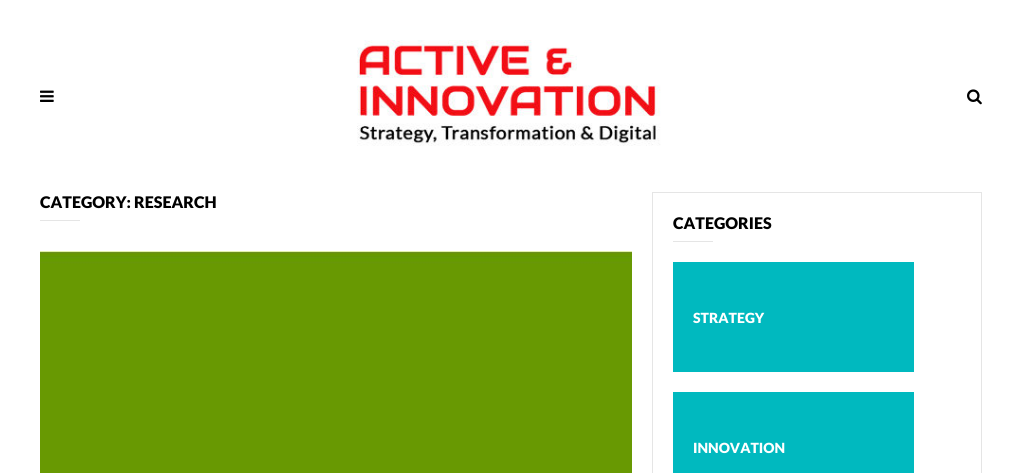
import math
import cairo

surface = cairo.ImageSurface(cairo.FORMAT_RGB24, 1022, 473)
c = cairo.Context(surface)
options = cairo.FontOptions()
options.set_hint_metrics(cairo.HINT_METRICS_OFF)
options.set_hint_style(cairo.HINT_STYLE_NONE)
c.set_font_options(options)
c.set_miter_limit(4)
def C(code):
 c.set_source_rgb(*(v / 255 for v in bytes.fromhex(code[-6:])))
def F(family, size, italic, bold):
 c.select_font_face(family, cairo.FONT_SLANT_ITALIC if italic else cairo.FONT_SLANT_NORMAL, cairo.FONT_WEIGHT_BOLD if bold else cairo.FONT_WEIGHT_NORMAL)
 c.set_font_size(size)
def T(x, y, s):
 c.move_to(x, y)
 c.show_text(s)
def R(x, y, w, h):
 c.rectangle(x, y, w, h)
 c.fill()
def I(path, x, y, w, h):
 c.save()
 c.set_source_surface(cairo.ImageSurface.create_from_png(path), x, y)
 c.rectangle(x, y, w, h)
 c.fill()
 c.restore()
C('ffffff')
c.paint()
I('1.png',40,90,14,12)
I('2.png',357,40,304,106)
I('3.png',967,89,15,16)
F('Lato Black',16,0,0)
C('000000')
T(40,208,'CATEGORY: RESEARCH')
C('e5e5e5')
R(40,220,40,1)
I('4.png',40,251,592,222)
c.rectangle(652.5,192.5,329,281)
c.set_line_width(1)
c.stroke()
C('000000')
T(673,229,'CATEGORIES')
C('e5e5e5')
R(673,241,40,1)
C('00b9bf')
R(673,262,241,110)
F('Lato Black',14,0,0)
C('ffffff')
T(693,323,'STRATEGY')
C('00b9bf')
R(673,392,241,81)
C('ffffff')
T(693,453,'INNOVATION')
surface.write_to_png('o.png')
